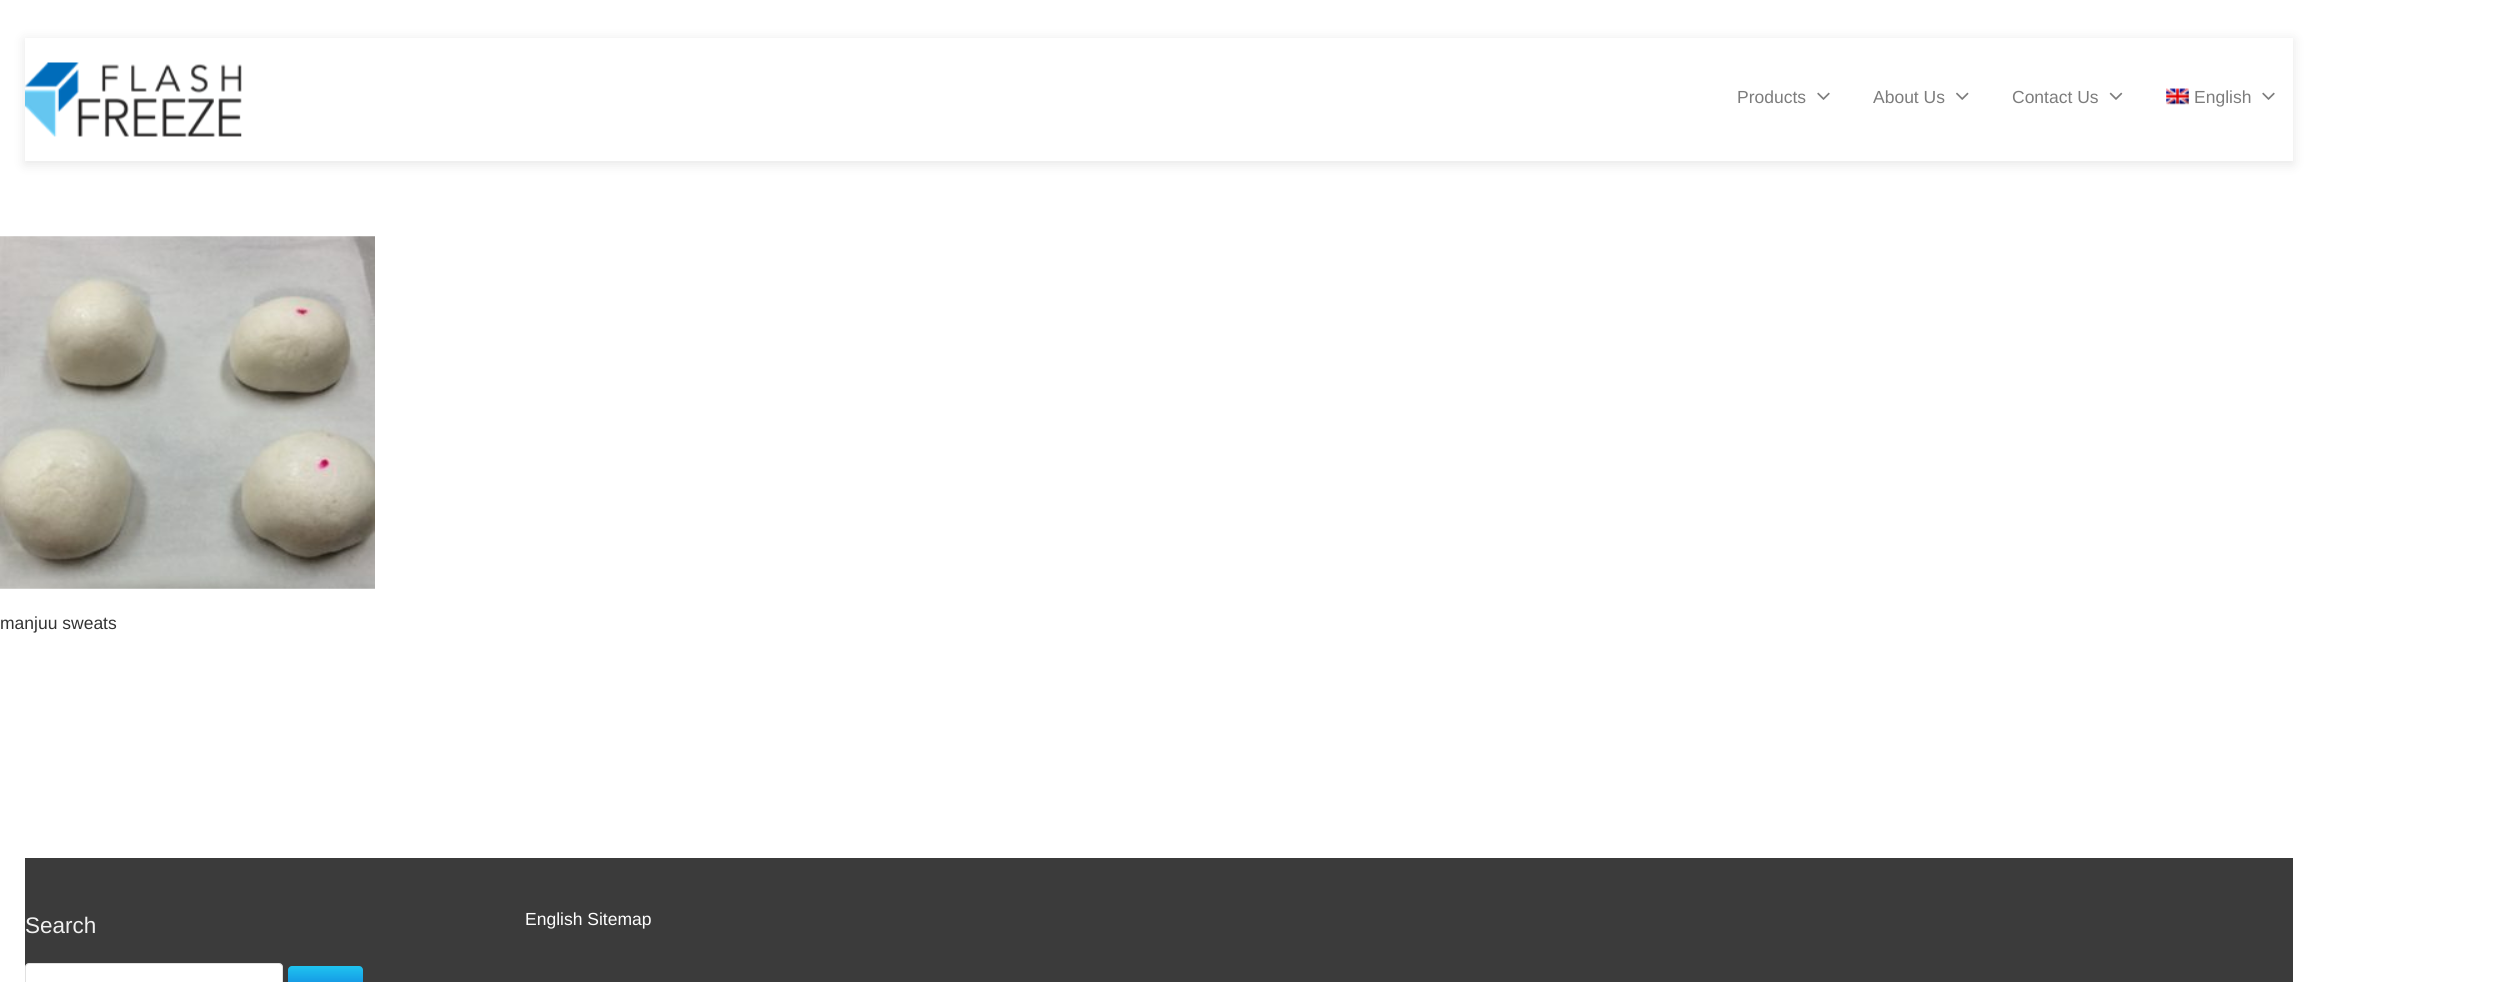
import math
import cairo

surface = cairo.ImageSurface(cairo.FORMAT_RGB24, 2519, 982)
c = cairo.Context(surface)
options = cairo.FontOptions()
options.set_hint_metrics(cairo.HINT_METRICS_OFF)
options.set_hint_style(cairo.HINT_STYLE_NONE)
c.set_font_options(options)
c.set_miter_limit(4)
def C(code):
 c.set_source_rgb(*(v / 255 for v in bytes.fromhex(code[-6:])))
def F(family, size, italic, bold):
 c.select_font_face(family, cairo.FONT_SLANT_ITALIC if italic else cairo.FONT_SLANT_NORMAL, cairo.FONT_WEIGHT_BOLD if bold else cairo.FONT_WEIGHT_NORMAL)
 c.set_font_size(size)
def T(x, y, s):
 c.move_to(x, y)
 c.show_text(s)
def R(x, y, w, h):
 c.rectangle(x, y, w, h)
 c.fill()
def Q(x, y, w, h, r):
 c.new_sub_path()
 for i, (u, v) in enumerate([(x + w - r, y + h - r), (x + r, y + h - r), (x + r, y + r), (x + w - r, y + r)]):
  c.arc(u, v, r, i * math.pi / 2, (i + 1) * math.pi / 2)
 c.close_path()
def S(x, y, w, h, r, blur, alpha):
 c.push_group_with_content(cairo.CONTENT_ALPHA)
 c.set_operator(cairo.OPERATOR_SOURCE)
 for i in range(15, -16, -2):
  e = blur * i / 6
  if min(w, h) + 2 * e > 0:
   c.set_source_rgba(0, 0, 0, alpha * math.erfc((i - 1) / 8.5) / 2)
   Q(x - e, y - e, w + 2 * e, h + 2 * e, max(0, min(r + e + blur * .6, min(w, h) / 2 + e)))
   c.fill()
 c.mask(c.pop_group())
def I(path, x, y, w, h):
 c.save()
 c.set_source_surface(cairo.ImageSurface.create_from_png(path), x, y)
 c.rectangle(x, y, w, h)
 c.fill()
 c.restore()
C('ffffff')
c.paint()
C('000000')
S(25,40,2268,124,0,6,.1)
C('ffffff')
R(25,38,2268,123)
I('1.png',25,62,217,75)
F('Liberation Sans',17.5,0,0)
C('7c7c7c')
T(1737,103,'Products')
I('2.png',1817,92,13,8)
T(1873,103,'About Us')
I('3.png',1956,92,13,8)
T(2012,103,'Contact Us')
I('4.png',2109,92,14,8)
I('5.png',2166,88,23,17)
T(2194,103,'English')
I('2.png',2262,92,13,8)
I('6.png',0,236,375,353)
C('333333')
T(0,629,'manjuu sweats')
C('3b3b3b')
R(25,858,2268,124)
F('Liberation Sans',22.5,0,0)
C('f1f1f1')
T(25,933,'Search')
C('ffffff')
Q(25.5,963.5,257,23,3.5)
c.fill_preserve()
C('e1e1e1')
c.set_line_width(1)
c.stroke()
gradient = cairo.LinearGradient(325,966,325,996)
gradient.add_color_stop_rgba(0,0.122,0.769,0.941,1)
gradient.add_color_stop_rgba(1,0.055,0.478,0.867,1)
c.set_source(gradient)
Q(288,966,75,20,4)
c.fill()
F('Liberation Sans',17.5,0,0)
C('ffffff')
T(525,925,'English Sitemap')
surface.write_to_png('o.png')
